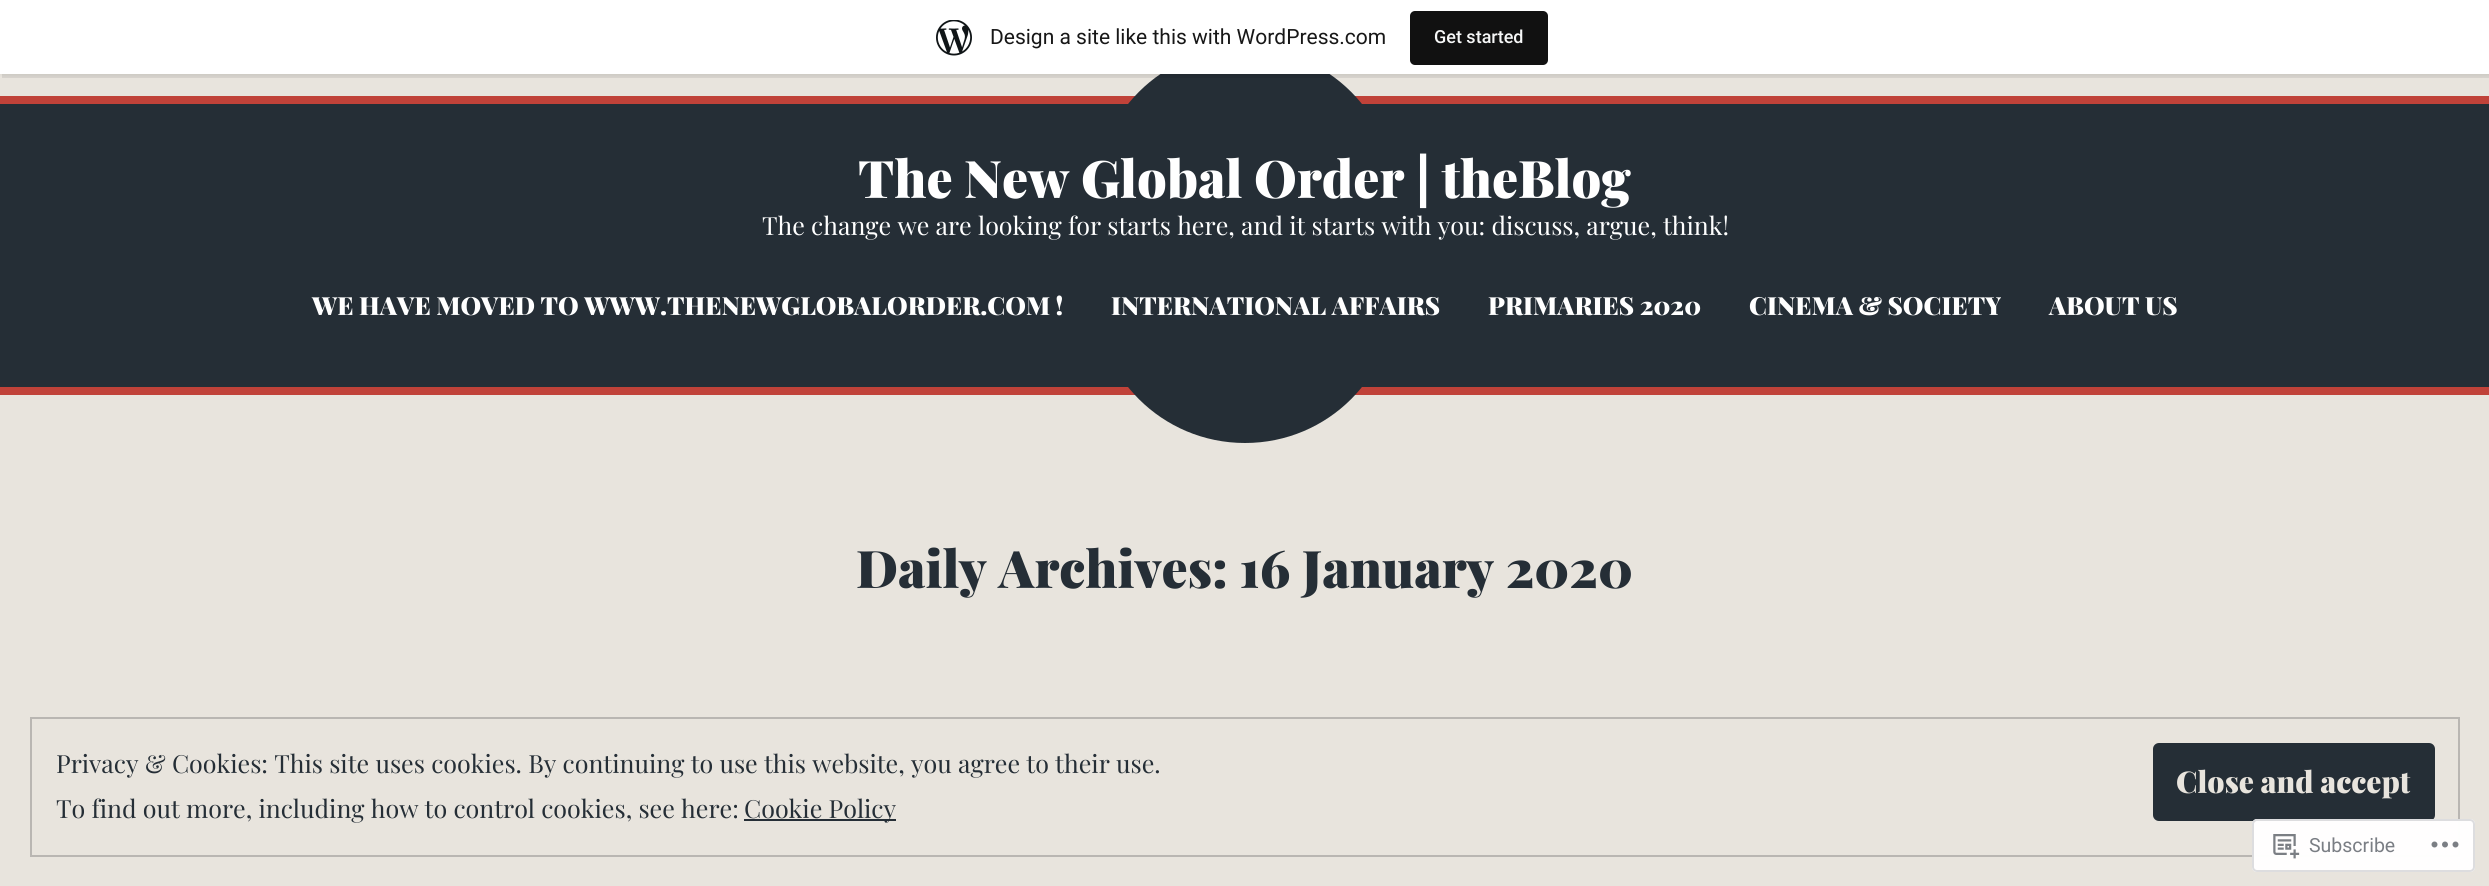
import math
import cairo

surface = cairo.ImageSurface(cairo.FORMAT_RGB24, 2489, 886)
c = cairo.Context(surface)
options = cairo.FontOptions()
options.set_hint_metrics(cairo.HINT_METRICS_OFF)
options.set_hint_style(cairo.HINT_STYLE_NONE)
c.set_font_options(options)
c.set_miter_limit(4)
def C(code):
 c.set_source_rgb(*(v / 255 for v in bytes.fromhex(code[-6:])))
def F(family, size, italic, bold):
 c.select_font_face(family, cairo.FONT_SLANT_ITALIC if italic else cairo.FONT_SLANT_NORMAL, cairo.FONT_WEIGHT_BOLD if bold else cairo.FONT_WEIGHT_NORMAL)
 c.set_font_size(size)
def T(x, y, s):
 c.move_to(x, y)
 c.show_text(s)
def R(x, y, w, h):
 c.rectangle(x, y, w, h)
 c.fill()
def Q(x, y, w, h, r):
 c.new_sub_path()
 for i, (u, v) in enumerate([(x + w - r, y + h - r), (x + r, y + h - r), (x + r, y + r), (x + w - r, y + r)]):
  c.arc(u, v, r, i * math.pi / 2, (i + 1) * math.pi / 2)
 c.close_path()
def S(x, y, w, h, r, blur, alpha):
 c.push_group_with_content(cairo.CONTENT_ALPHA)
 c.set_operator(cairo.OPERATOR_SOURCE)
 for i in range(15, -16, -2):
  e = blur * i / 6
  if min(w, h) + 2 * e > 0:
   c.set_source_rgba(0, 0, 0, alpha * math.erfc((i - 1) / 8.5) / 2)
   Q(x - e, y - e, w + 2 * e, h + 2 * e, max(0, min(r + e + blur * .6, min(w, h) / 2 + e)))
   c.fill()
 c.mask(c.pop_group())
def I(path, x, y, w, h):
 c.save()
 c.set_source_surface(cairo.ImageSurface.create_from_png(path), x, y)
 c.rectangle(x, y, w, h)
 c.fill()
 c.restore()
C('e8e4dd')
c.paint()
C('252e36')
R(0,104,2489,283)
C('c04239')
R(0,96,2489,8)
C('252e36')
c.new_path()
c.move_to(1245,48)
c.curve_to(1328,48,1395,115,1395,198)
c.line_to(1095,198)
c.curve_to(1095,115,1162,48,1245,48)
c.close_path()
c.fill()
C('000000')
S(0,2,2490,73,0,1.5,.05)
c.set_source_rgba(0,0,0,0.08)
c.new_path()
c.move_to(2,74)
c.line_to(2,78)
c.line_to(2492,78)
c.line_to(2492,5)
c.line_to(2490,5)
c.line_to(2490,74)
c.close_path()
c.fill()
C('ffffff')
R(0,0,2489,74)
I('1.png',936,20,36,36)
F('Roboto',21,0,0)
C('171717')
T(990,44,'Design a site like this with WordPress.com')
C('111111')
Q(1410,11,138,54,5)
c.fill()
F('Roboto Medium',18,0,0)
C('f6f7f7')
T(1434,43,'Get started')
C('c04239')
R(0,387,2489,8)
F('Playfair Display Black',51.8,0,0)
C('ffffff')
T(858,198,'The New Global Order | theBlog')
F('Playfair Display',25,0,0)
T(762,235,'The change we are looking for starts here, and it starts with you: discuss, argue, think!')
C('252e36')
c.new_path()
c.move_to(1095,293)
c.line_to(1395,293)
c.curve_to(1395,376,1328,443,1245,443)
c.curve_to(1162,443,1095,376,1095,293)
c.close_path()
c.fill()
F('Playfair Display Black',25,0,0)
C('ffffff')
T(312,315,'WE HAVE MOVED TO WWW.THENEWGLOBALORDER.COM !')
T(1111,315,'INTERNATIONAL AFFAIRS')
T(1488,315,'PRIMARIES 2020')
T(1749,315,'CINEMA & SOCIETY')
T(2049,315,'ABOUT US')
F('Playfair Display Black',51.8,0,0)
C('252e36')
T(856,588,'Daily Archives: 16 January 2020')
c.rectangle(31,718,2428,138)
C('b9b6b2')
c.stroke()
F('Playfair Display',25,0,0)
C('252e36')
T(56,773,'Privacy & Cookies: This site uses cookies. By continuing to use this website, you agree to their use.')
Q(2153,743,282,78,6)
c.fill()
F('Playfair Display Black',30,0,0)
C('e8e4dd')
T(2176,793,'Close and accept')
F('Playfair Display',25,0,0)
C('252e36')
T(56,818,'To find out more, including how to control cookies, see here:')
R(744,819,152,2)
T(744,818,'Cookie Policy')
c.set_source_rgba(1,1,1,0.98)
Q(2252,819,223,53,5)
c.fill()
Q(2253,820,221,51,4)
c.set_source_rgba(0.863,0.863,0.871,0.98)
c.stroke()
I('2.png',2273,834,27,25)
F('Roboto',19.5,0,0)
C('7a7e84')
T(2309,852,'Subscribe')
I('3.png',2431,841,28,7)
surface.write_to_png('o.png')
